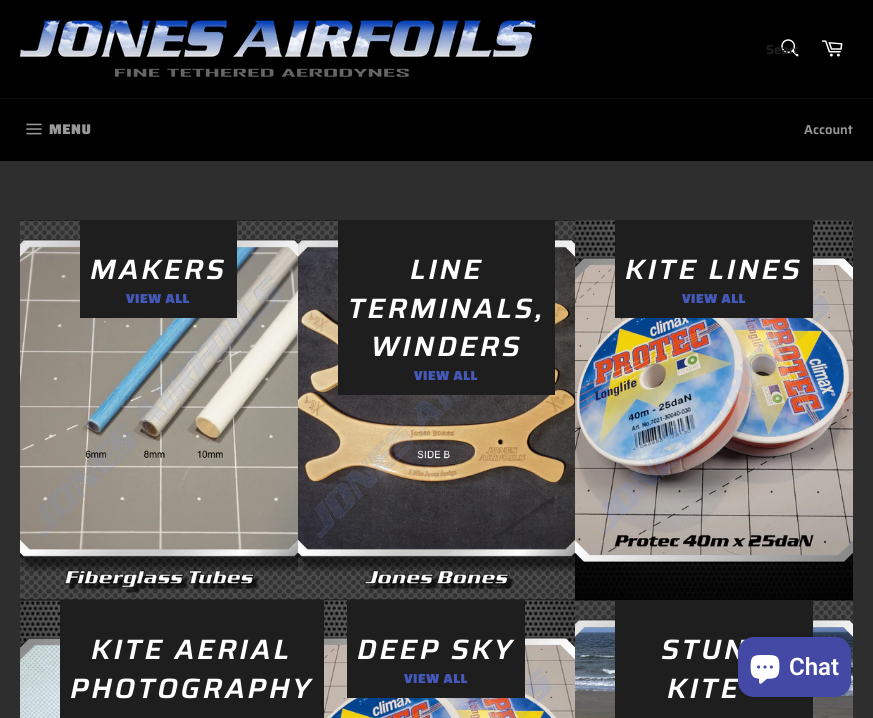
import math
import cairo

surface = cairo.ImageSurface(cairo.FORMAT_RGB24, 873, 718)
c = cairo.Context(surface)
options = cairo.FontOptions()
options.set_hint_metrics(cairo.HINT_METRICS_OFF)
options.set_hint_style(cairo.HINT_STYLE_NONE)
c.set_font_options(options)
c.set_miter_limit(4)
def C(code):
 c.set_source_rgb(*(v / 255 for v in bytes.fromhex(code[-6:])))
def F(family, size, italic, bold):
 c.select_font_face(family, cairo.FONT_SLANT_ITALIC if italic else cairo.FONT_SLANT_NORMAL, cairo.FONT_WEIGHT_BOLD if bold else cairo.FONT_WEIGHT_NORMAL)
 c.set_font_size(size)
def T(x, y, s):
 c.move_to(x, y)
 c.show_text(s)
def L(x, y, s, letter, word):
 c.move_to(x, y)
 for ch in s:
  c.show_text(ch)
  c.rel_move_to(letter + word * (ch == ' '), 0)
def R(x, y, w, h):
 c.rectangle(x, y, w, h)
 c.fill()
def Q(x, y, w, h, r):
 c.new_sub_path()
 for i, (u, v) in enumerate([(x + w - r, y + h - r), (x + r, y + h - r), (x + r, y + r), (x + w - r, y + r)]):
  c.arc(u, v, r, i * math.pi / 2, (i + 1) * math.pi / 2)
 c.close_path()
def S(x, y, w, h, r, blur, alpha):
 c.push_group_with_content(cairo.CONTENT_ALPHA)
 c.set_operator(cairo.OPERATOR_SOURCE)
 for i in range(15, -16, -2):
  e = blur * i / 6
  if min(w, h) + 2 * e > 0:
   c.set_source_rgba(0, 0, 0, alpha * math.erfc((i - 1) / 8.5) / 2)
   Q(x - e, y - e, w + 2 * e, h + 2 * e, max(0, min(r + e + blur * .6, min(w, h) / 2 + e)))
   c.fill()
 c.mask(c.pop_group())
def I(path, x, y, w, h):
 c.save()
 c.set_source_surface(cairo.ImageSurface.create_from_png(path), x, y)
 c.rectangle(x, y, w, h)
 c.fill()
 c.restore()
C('2e2e2e')
c.paint()
C('000000')
R(0,0,873,98)
I('1.png',20,20,517,57)
I('2.png',781,39,18,18)
c.save()
c.rectangle(766,39,32,21)
c.clip()
F('Saira SemiBold',13,0,0)
C('212121')
T(766,54,'Searc')
c.restore()
I('3.png',821,40,22,17)
R(0,99,873,62)
C('0d0d0d')
R(0,98,873,1)
I('4.png',26,123,16,12)
F('Saira Black',14,0,0)
C('999999')
L(49,134,'MENU',.5,0)
F('Saira SemiBold',13,0,0)
T(804,134,'Account')
I('5.png',20,220,278,380)
C('1e1e1e')
R(80,220,157,98)
F('Saira SemiBold',28,1,0)
C('ffffff')
L(90,279,'MAKERS',2.75,0)
F('Saira Black',13,0,0)
C('4459b9')
L(126,303,'VIEW ALL',.5,0)
I('6.png',298,220,277,380)
C('1e1e1e')
R(338,220,217,175)
F('Saira SemiBold',28,1,0)
C('ffffff')
L(410,279,'LINE',2.75,0)
L(348,318,'TERMINALS,',2.75,0)
L(371,356,'WINDERS',2.75,0)
F('Saira Black',13,0,0)
C('4459b9')
L(414,380,'VIEW ALL',.5,0)
I('7.png',575,220,278,380)
C('1e1e1e')
R(615,220,198,98)
F('Saira SemiBold',28,1,0)
C('ffffff')
L(625,279,'KITE LINES',2.75,0)
F('Saira Black',13,0,0)
C('4459b9')
L(682,303,'VIEW ALL',.5,0)
I('8.png',20,600,40,118)
C('1e1e1e')
R(60,600,264,118)
F('Saira SemiBold',28,1,0)
C('ffffff')
L(91,659,'KITE AERIAL',2.75,0)
L(70,698,'PHOTOGRAPHY',2.75,0)
I('9.png',324,600,251,118)
C('1e1e1e')
R(347,600,178,98)
C('ffffff')
L(357,659,'DEEP SKY',2.75,0)
F('Saira Black',13,0,0)
C('4459b9')
L(404,683,'VIEW ALL',.5,0)
I('10.png',575,600,278,118)
C('1e1e1e')
R(615,600,198,118)
F('Saira SemiBold',28,1,0)
C('ffffff')
L(661,659,'STUN',2.75,0)
L(667,698,'KITE',2.75,0)
C('000000')
S(738,637,113,60,16,2.5,.15)
C('4549a6')
Q(738,637,113,60,16)
c.fill()
I('11.png',750,655,30,29)
F('Roboto SemiBold',24,0,0)
C('ffffff')
T(789,675,'Chat')
surface.write_to_png('o.png')
